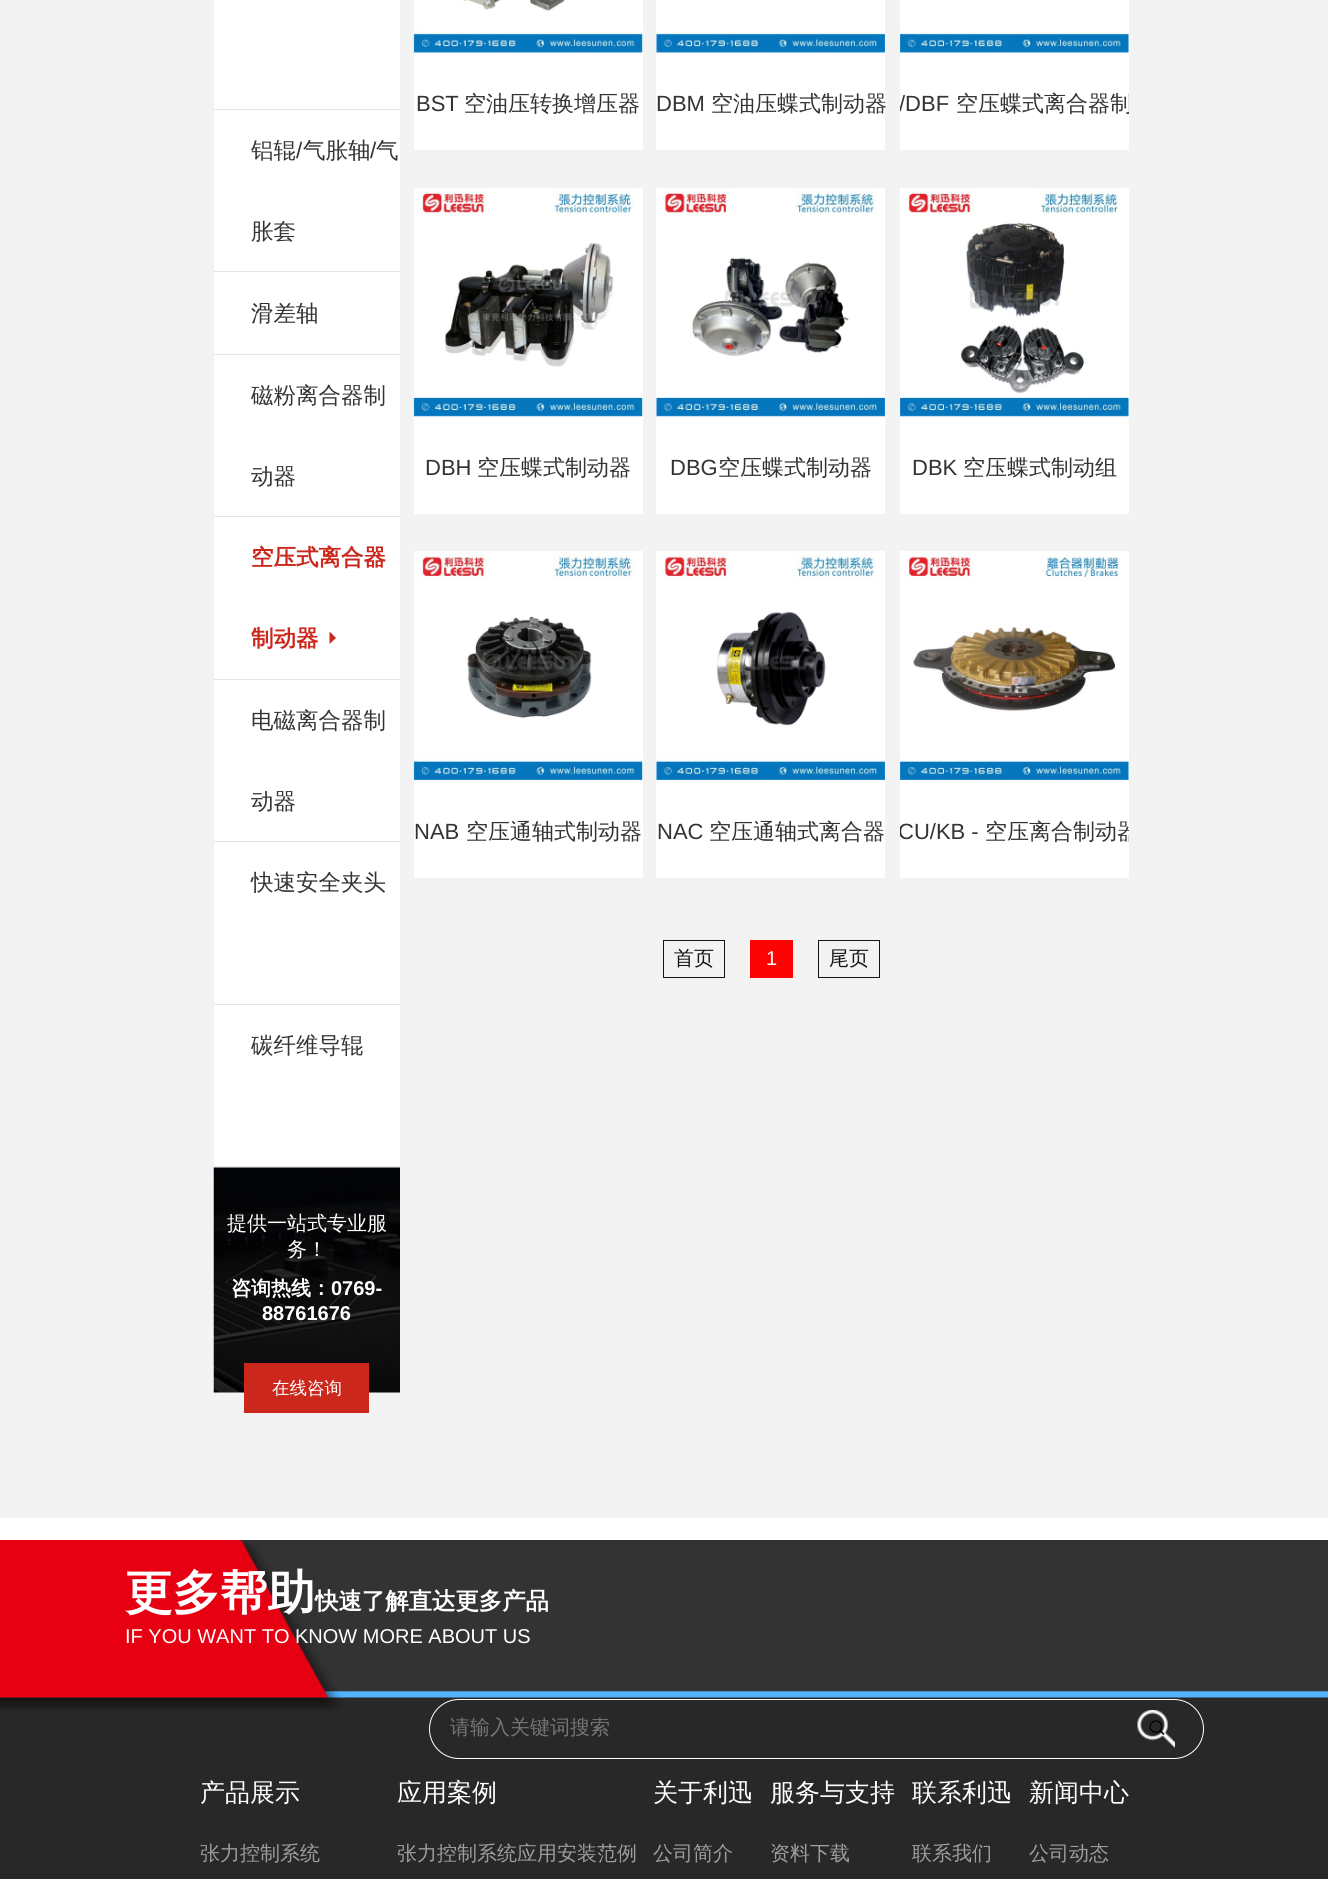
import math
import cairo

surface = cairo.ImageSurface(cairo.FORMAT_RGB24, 1328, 1879)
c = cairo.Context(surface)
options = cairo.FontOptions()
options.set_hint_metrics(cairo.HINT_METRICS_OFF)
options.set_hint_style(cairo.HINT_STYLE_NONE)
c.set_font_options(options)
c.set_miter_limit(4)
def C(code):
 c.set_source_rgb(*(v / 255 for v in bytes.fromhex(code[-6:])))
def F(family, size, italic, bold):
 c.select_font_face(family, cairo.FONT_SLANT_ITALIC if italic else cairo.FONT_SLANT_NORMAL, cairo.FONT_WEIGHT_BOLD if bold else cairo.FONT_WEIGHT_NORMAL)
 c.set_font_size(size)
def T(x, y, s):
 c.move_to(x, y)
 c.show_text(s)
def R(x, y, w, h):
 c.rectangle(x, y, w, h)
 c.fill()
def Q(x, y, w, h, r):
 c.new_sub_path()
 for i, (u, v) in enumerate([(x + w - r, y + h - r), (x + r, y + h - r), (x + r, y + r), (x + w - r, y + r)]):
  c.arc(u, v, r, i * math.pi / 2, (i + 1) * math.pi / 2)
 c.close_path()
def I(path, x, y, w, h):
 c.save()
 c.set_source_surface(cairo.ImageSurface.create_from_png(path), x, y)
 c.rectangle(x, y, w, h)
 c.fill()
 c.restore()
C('ffffff')
c.paint()
C('f3f3f3')
R(0,0,1328,1518)
C('ffffff')
R(214,0,186,1168)
C('e5e5e5')
R(214,109,186,1)
R(214,271,186,1)
F('WenQuanYi Zen Hei Medium',22.5,0,0)
C('333333')
T(251,158,'铝辊')
F('Liberation Sans',22.5,0,0)
T(296,158,'/')
F('WenQuanYi Zen Hei Medium',22.5,0,0)
T(303,158,'气胀轴')
F('Liberation Sans',22.5,0,0)
T(370,158,'/')
F('WenQuanYi Zen Hei Medium',22.5,0,0)
T(376,158,'气')
T(251,239,'胀套')
C('e5e5e5')
R(214,354,186,1)
C('333333')
T(251,321,'滑差轴')
C('e5e5e5')
R(214,516,186,1)
C('333333')
T(251,403,'磁粉离合器制')
T(251,484,'动器')
C('e5e5e5')
R(214,679,186,1)
F('WenQuanYi Zen Hei',22.5,0,1)
C('cb271d')
T(251,565,'空压式离合器')
T(251,646,'制动器')
c.new_path()
c.move_to(336,638)
c.line_to(329.5,631.5)
c.line_to(329.5,644)
c.close_path()
c.fill()
C('e5e5e5')
R(214,841,186,1)
F('WenQuanYi Zen Hei Medium',22.5,0,0)
C('333333')
T(251,728,'电磁离合器制')
T(251,809,'动器')
C('e5e5e5')
R(214,1004,186,1)
C('333333')
T(251,890,'快速安全夹头')
C('e5e5e5')
R(214,1166,186,1)
C('333333')
T(251,1053,'碳纤维导辊')
I('1.png',213,1167,187,226)
F('WenQuanYi Zen Hei Medium',20,0,0)
C('ffffff')
T(227,1230,'提供一站式专业服')
T(287,1256,'务！')
F('WenQuanYi Zen Hei',20,0,1)
T(231,1295,'咨询热线：')
F('Liberation Sans',20,0,1)
T(331,1295,'0769-')
T(262,1320,'88761676')
C('cb271d')
R(244,1363,125,50)
F('WenQuanYi Zen Hei Medium',17.5,0,0)
C('ffffff')
T(272,1394,'在线咨询')
R(414,0,229,150)
I('2.png',413,0,230,53)
F('Liberation Sans',22,0,0)
C('333333')
T(416,111,'BST')
F('WenQuanYi Zen Hei Medium',22,0,0)
T(464,111,'空油压转换增压器')
C('ffffff')
R(656,0,229,150)
I('3.png',656,30,229,23)
F('Liberation Sans',22,0,0)
C('333333')
T(656,111,'DBM')
F('WenQuanYi Zen Hei Medium',22,0,0)
T(711,111,'空油压蝶式制动器')
C('ffffff')
R(900,0,229,150)
I('4.png',900,30,229,23)
c.save()
c.rectangle(900,58,229,92)
c.clip()
F('Liberation Sans',22,0,0)
C('333333')
T(899,111,'/DBF')
F('WenQuanYi Zen Hei Medium',22,0,0)
T(956,111,'空压蝶式离合器制')
c.restore()
R(414,188,229,326)
I('5.png',413,188,230,229)
F('Liberation Sans',22,0,0)
C('333333')
T(425,475,'DBH')
F('WenQuanYi Zen Hei Medium',22,0,0)
T(477,475,'空压蝶式制动器')
C('ffffff')
R(656,188,229,326)
I('6.png',656,188,229,229)
F('Liberation Sans',22,0,0)
C('333333')
T(670,475,'DBG')
F('WenQuanYi Zen Hei Medium',22,0,0)
T(718,475,'空压蝶式制动器')
C('ffffff')
R(900,188,229,326)
I('7.png',900,188,229,229)
F('Liberation Sans',22,0,0)
C('333333')
T(912,475,'DBK')
F('WenQuanYi Zen Hei Medium',22,0,0)
T(963,475,'空压蝶式制动组')
C('ffffff')
R(414,551,229,327)
I('8.png',413,551,230,229)
F('Liberation Sans',22,0,0)
C('333333')
T(414,839,'NAB')
F('WenQuanYi Zen Hei Medium',22,0,0)
T(466,839,'空压通轴式制动器')
C('ffffff')
R(656,551,229,327)
I('9.png',656,551,229,229)
F('Liberation Sans',22,0,0)
C('333333')
T(657,839,'NAC')
F('WenQuanYi Zen Hei Medium',22,0,0)
T(709,839,'空压通轴式离合器')
C('ffffff')
R(900,551,229,327)
I('10.png',900,551,229,229)
c.save()
c.rectangle(900,785,229,93)
c.clip()
F('Liberation Sans',22,0,0)
C('333333')
T(898,839,'CU/KB -')
F('WenQuanYi Zen Hei Medium',22,0,0)
T(985,839,'空压离合制动器')
c.restore()
c.rectangle(663.5,940.5,61,37)
C('181212')
c.set_line_width(1)
c.stroke()
F('WenQuanYi Zen Hei Medium',20,0,0)
T(674,965,'首页')
C('fc0304')
R(750,940,43,38)
F('Liberation Sans',20,0,0)
C('ffffff')
T(766,965,'1')
c.rectangle(818.5,940.5,61,37)
C('181212')
c.stroke()
F('WenQuanYi Zen Hei Medium',20,0,0)
T(829,965,'尾页')
C('282828')
R(0,1711,1328,168)
I('11.png',0,1540,1328,171)
F('WenQuanYi Zen Hei',47.5,0,1)
C('ffffff')
T(125,1609,'更多帮助')
F('WenQuanYi Zen Hei',23.4,0,1)
T(315,1609,'快速了解直达更多产品')
F('Liberation Sans',20,0,0)
T(125,1643,'IF YOU WANT TO KNOW MORE ABOUT US')
Q(429.5,1699.5,774,59,29.5)
c.stroke()
F('WenQuanYi Zen Hei Medium',20,0,0)
C('757575')
T(450,1734,'请输入关键词搜索')
I('12.png',1137,1710,38,38)
I('13.png',1149,1720,16,15)
F('WenQuanYi Zen Hei Medium',25,0,0)
C('ffffff')
T(200,1801,'产品展示')
F('WenQuanYi Zen Hei Medium',20,0,0)
C('9e9e9e')
T(200,1860,'张力控制系统')
F('WenQuanYi Zen Hei Medium',25,0,0)
C('ffffff')
T(397,1801,'应用案例')
F('WenQuanYi Zen Hei Medium',20,0,0)
C('9e9e9e')
T(397,1860,'张力控制系统应用安装范例')
F('WenQuanYi Zen Hei Medium',25,0,0)
C('ffffff')
T(653,1801,'关于利迅')
F('WenQuanYi Zen Hei Medium',20,0,0)
C('9e9e9e')
T(653,1860,'公司简介')
F('WenQuanYi Zen Hei Medium',25,0,0)
C('ffffff')
T(770,1801,'服务与支持')
F('WenQuanYi Zen Hei Medium',20,0,0)
C('9e9e9e')
T(770,1860,'资料下载')
F('WenQuanYi Zen Hei Medium',25,0,0)
C('ffffff')
T(912,1801,'联系利迅')
F('WenQuanYi Zen Hei Medium',20,0,0)
C('9e9e9e')
T(912,1860,'联系我们')
F('WenQuanYi Zen Hei Medium',25,0,0)
C('ffffff')
T(1029,1801,'新闻中心')
F('WenQuanYi Zen Hei Medium',20,0,0)
C('9e9e9e')
T(1029,1860,'公司动态')
surface.write_to_png('o.png')
